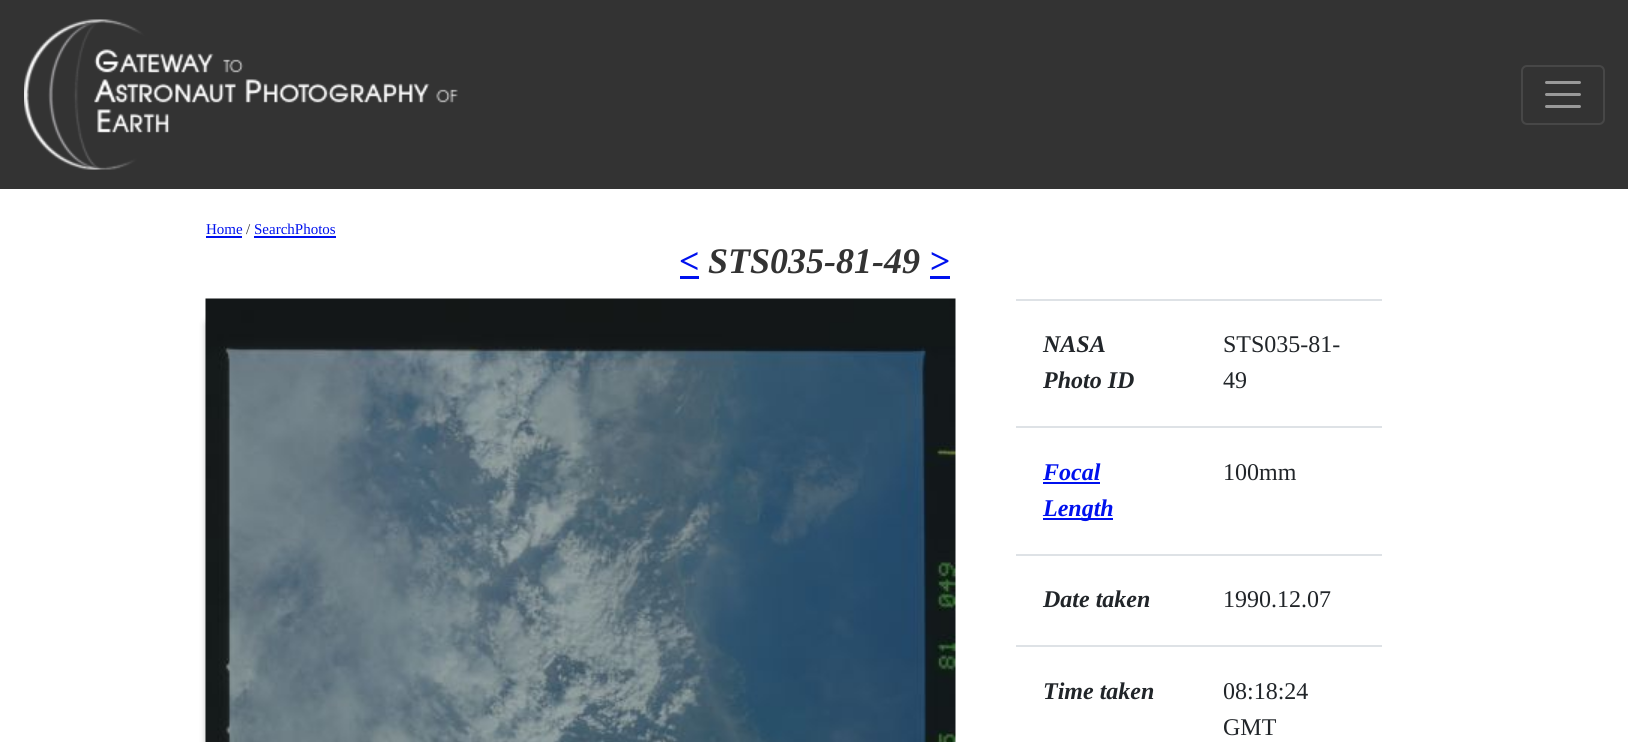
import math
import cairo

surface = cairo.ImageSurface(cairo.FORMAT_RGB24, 1628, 742)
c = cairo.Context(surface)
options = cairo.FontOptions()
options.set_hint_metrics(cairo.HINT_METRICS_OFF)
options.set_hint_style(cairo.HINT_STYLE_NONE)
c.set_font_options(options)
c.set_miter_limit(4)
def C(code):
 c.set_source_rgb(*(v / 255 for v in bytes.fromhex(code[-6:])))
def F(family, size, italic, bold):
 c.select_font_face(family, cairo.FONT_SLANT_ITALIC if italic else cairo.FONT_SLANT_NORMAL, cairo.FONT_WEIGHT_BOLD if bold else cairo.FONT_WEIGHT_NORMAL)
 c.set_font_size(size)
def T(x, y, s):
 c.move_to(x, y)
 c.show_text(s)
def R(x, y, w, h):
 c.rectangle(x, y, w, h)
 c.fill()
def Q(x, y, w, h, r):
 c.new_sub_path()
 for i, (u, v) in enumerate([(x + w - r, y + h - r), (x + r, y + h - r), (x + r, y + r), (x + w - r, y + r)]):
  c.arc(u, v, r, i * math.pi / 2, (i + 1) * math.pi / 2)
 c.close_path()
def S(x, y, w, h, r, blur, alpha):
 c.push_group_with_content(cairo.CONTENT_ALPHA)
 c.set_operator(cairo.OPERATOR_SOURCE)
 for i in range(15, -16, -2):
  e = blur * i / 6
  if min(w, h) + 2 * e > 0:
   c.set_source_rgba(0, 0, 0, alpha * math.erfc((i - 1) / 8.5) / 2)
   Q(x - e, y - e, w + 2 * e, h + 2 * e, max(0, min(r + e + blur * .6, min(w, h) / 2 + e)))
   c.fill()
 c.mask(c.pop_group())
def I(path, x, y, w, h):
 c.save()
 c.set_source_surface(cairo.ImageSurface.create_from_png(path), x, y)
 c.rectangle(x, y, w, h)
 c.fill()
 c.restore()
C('ffffff')
c.paint()
C('333333')
R(0,0,1628,189)
I('1.png',24,19,434,151)
Q(1522,66,82,58,5)
C('474747')
c.stroke()
c.new_path()
c.move_to(1546.5,82.5)
c.line_to(1579.5,82.5)
c.move_to(1546.5,94.5)
c.line_to(1579.5,94.5)
c.move_to(1546.5,106.5)
c.line_to(1579.5,106.5)
C('999999')
c.set_line_width(3)
c.set_line_cap(cairo.LINE_CAP_ROUND)
c.stroke()
F('Liberation Serif',15,0,0)
C('0011ee')
T(206,234,'Home')
R(206,236,36,2)
C('333333')
T(246,234,'/')
C('0011ee')
T(254,234,'SearchPhotos')
R(254,236,82,2)
F('Liberation Serif',36,1,1)
T(679,273,'<')
R(680,276,19,3)
C('333333')
T(708,273,'STS035-81-49')
C('0011ee')
T(929,273,'>')
R(930,276,20,3)
C('333333')
S(210,324,732,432,0,4.5,1)
I('2.png',205,298,751,444)
F('Liberation Serif',24,1,1)
C('212529')
T(1043,352,'NASA')
T(1043,388,'Photo ID')
C('dee2e6')
R(1016,299,366,2)
F('Liberation Serif',24,0,0)
C('212529')
T(1223,352,'STS035-81-')
T(1223,388,'49')
F('Liberation Serif',24,1,1)
C('0011ee')
T(1043,480,'Focal')
R(1043,482,57,2)
R(1043,518,70,2)
T(1043,516,'Length')
C('dee2e6')
R(1016,426,366,2)
F('Liberation Serif',24,0,0)
C('212529')
T(1223,480,'100mm')
F('Liberation Serif',24,1,1)
T(1043,607,'Date taken')
C('dee2e6')
R(1016,554,366,2)
F('Liberation Serif',24,0,0)
C('212529')
T(1223,607,'1990.12.07')
F('Liberation Serif',24,1,1)
T(1043,699,'Time taken')
C('dee2e6')
R(1016,645,366,2)
F('Liberation Serif',24,0,0)
C('212529')
T(1223,699,'08:18:24')
T(1223,735,'GMT')
surface.write_to_png('o.png')
